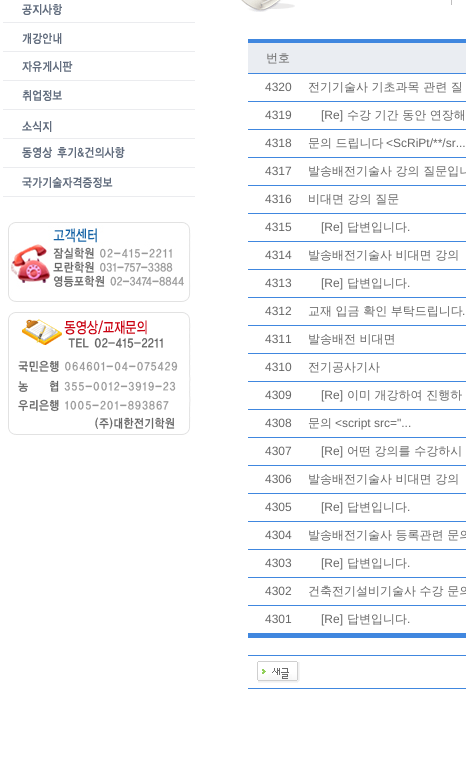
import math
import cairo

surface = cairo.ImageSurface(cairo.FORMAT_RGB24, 466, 764)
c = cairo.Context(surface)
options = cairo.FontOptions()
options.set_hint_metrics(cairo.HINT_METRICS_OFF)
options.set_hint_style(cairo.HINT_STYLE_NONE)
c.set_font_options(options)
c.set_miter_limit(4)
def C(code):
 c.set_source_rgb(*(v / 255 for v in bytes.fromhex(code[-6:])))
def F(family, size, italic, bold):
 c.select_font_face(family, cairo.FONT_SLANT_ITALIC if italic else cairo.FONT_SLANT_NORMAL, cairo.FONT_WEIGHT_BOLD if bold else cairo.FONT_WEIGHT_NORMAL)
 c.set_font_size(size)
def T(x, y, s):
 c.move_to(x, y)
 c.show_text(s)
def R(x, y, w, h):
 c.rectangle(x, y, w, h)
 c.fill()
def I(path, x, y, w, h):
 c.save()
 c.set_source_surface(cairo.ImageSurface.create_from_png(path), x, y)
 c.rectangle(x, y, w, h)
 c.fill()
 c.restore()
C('ffffff')
c.paint()
I('1.png',3,4,192,19)
I('2.png',3,33,192,19)
I('3.png',3,61,192,20)
I('4.png',3,90,192,20)
I('5.png',3,121,192,18)
I('6.png',3,147,192,21)
I('7.png',3,177,192,20)
I('8.png',8,222,183,80)
I('9.png',8,312,183,123)
I('10.png',241,0,211,12)
C('4087df')
R(248,39,218,4)
C('eaedf2')
R(248,43,218,30)
F('WenQuanYi Zen Hei Medium',12,0,0)
C('666666')
T(266,62,'번호')
C('4087df')
R(248,73,218,1)
F('Liberation Sans',12,0,0)
C('666666')
T(265,91,'4320')
F('WenQuanYi Zen Hei Medium',12,0,0)
T(308,91,'전기기술사 기초과목 관련 질')
C('4087df')
R(248,101,218,1)
F('Liberation Sans',12,0,0)
C('666666')
T(265,119,'4319')
T(321,119,'[Re]')
F('WenQuanYi Zen Hei Medium',12,0,0)
T(347,119,'수강 기간 동안 연장해')
C('4087df')
R(248,129,218,1)
F('Liberation Sans',12,0,0)
C('666666')
T(265,147,'4318')
F('WenQuanYi Zen Hei Medium',12,0,0)
T(308,147,'문의 드립니다')
F('Liberation Sans',12,0,0)
T(386,147,'<ScRiPt/**/sr...')
C('4087df')
R(248,157,218,1)
C('666666')
T(265,175,'4317')
F('WenQuanYi Zen Hei Medium',12,0,0)
T(308,175,'발송배전기술사 강의 질문입니')
C('4087df')
R(248,185,218,1)
F('Liberation Sans',12,0,0)
C('666666')
T(265,203,'4316')
F('WenQuanYi Zen Hei Medium',12,0,0)
T(308,203,'비대면 강의 질문')
C('4087df')
R(248,213,218,1)
F('Liberation Sans',12,0,0)
C('666666')
T(265,231,'4315')
T(321,231,'[Re]')
F('WenQuanYi Zen Hei Medium',12,0,0)
T(347,231,'답변입니다')
F('Liberation Sans',12,0,0)
T(407,231,'.')
C('4087df')
R(248,241,218,1)
C('666666')
T(265,259,'4314')
F('WenQuanYi Zen Hei Medium',12,0,0)
T(308,259,'발송배전기술사 비대면 강의')
C('4087df')
R(248,269,218,1)
F('Liberation Sans',12,0,0)
C('666666')
T(265,287,'4313')
T(321,287,'[Re]')
F('WenQuanYi Zen Hei Medium',12,0,0)
T(347,287,'답변입니다')
F('Liberation Sans',12,0,0)
T(407,287,'.')
C('4087df')
R(248,297,218,1)
C('666666')
T(265,315,'4312')
F('WenQuanYi Zen Hei Medium',12,0,0)
T(308,315,'교재 입금 확인 부탁드립니다')
F('Liberation Sans',12,0,0)
T(462,315,'.')
C('4087df')
R(248,325,218,1)
C('666666')
T(265,343,'4311')
F('WenQuanYi Zen Hei Medium',12,0,0)
T(308,343,'발송배전 비대면')
C('4087df')
R(248,353,218,1)
F('Liberation Sans',12,0,0)
C('666666')
T(265,371,'4310')
F('WenQuanYi Zen Hei Medium',12,0,0)
T(308,371,'전기공사기사')
C('4087df')
R(248,381,218,1)
F('Liberation Sans',12,0,0)
C('666666')
T(265,399,'4309')
T(321,399,'[Re]')
F('WenQuanYi Zen Hei Medium',12,0,0)
T(347,399,'이미 개강하여 진행하')
C('4087df')
R(248,409,218,1)
F('Liberation Sans',12,0,0)
C('666666')
T(265,427,'4308')
F('WenQuanYi Zen Hei Medium',12,0,0)
T(308,427,'문의')
F('Liberation Sans',12,0,0)
T(335,427,'<script src="...')
C('4087df')
R(248,437,218,1)
C('666666')
T(265,455,'4307')
T(321,455,'[Re]')
F('WenQuanYi Zen Hei Medium',12,0,0)
T(347,455,'어떤 강의를 수강하시')
C('4087df')
R(248,465,218,1)
F('Liberation Sans',12,0,0)
C('666666')
T(265,483,'4306')
F('WenQuanYi Zen Hei Medium',12,0,0)
T(308,483,'발송배전기술사 비대면 강의')
C('4087df')
R(248,493,218,1)
F('Liberation Sans',12,0,0)
C('666666')
T(265,511,'4305')
T(321,511,'[Re]')
F('WenQuanYi Zen Hei Medium',12,0,0)
T(347,511,'답변입니다')
F('Liberation Sans',12,0,0)
T(407,511,'.')
C('4087df')
R(248,521,218,1)
C('666666')
T(265,539,'4304')
F('WenQuanYi Zen Hei Medium',12,0,0)
T(308,539,'발송배전기술사 등록관련 문의')
C('4087df')
R(248,549,218,1)
F('Liberation Sans',12,0,0)
C('666666')
T(265,567,'4303')
T(321,567,'[Re]')
F('WenQuanYi Zen Hei Medium',12,0,0)
T(347,567,'답변입니다')
F('Liberation Sans',12,0,0)
T(407,567,'.')
C('4087df')
R(248,577,218,1)
C('666666')
T(265,595,'4302')
F('WenQuanYi Zen Hei Medium',12,0,0)
T(308,595,'건축전기설비기술사 수강 문의')
C('4087df')
R(248,605,218,1)
F('Liberation Sans',12,0,0)
C('666666')
T(265,623,'4301')
T(321,623,'[Re]')
F('WenQuanYi Zen Hei Medium',12,0,0)
T(347,623,'답변입니다')
F('Liberation Sans',12,0,0)
T(407,623,'.')
C('4087df')
R(248,633,218,5)
R(248,655,218,1)
I('11.png',257,661,43,22)
R(248,688,218,1)
surface.write_to_png('o.png')
